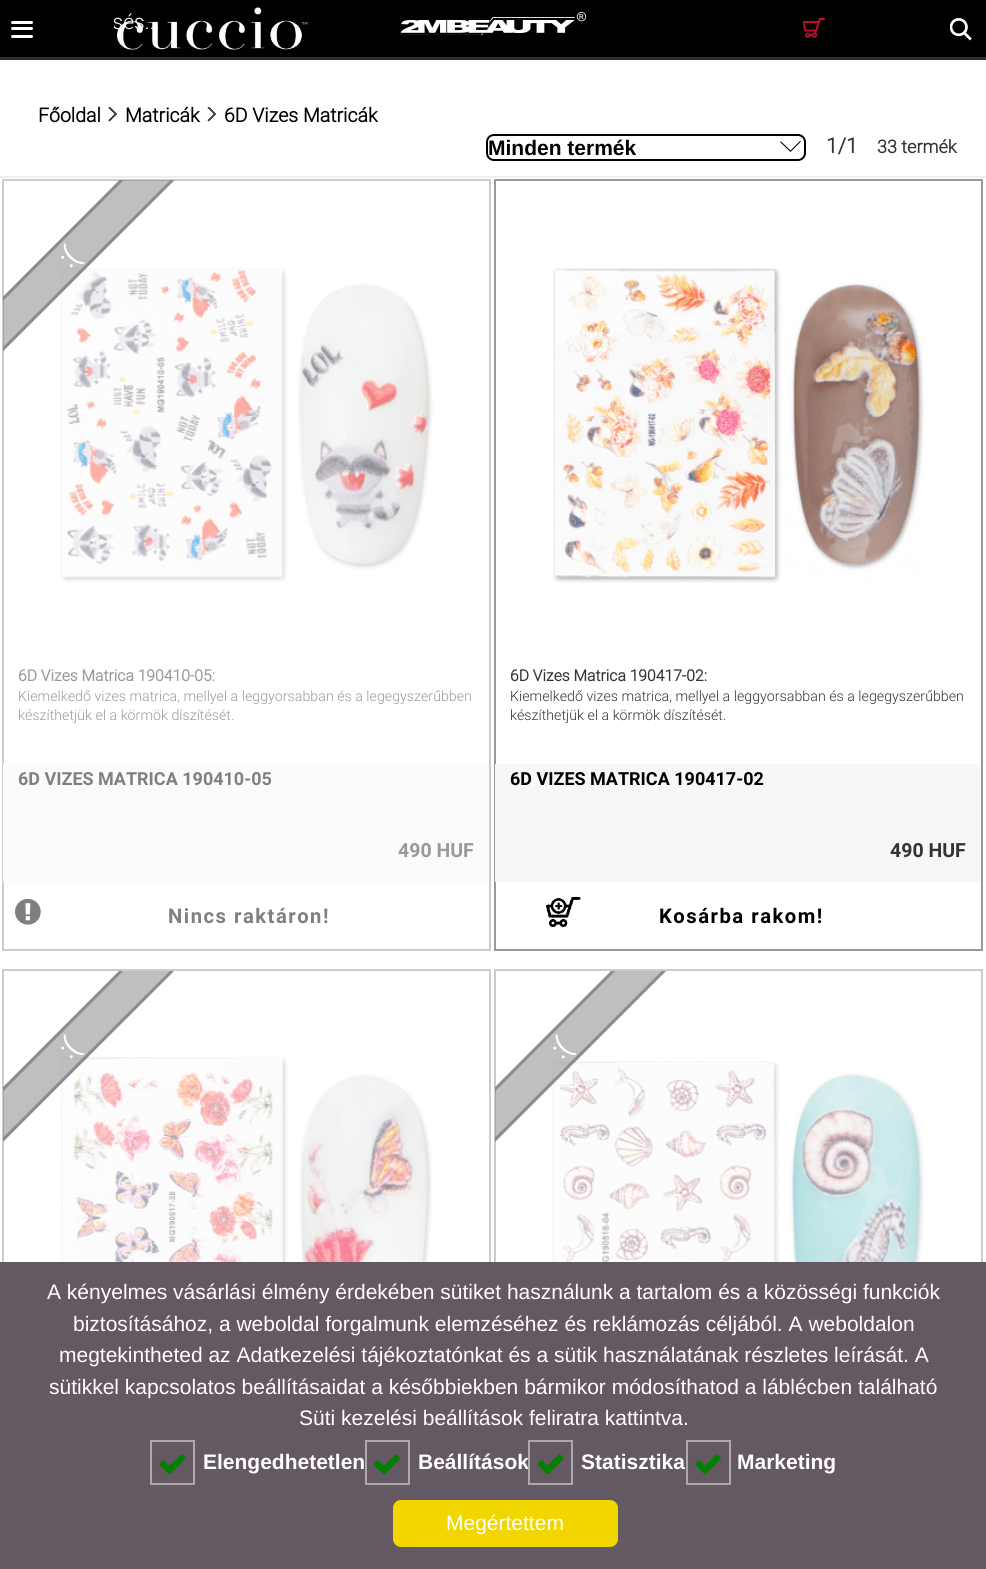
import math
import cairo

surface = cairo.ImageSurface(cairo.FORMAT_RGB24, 986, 1569)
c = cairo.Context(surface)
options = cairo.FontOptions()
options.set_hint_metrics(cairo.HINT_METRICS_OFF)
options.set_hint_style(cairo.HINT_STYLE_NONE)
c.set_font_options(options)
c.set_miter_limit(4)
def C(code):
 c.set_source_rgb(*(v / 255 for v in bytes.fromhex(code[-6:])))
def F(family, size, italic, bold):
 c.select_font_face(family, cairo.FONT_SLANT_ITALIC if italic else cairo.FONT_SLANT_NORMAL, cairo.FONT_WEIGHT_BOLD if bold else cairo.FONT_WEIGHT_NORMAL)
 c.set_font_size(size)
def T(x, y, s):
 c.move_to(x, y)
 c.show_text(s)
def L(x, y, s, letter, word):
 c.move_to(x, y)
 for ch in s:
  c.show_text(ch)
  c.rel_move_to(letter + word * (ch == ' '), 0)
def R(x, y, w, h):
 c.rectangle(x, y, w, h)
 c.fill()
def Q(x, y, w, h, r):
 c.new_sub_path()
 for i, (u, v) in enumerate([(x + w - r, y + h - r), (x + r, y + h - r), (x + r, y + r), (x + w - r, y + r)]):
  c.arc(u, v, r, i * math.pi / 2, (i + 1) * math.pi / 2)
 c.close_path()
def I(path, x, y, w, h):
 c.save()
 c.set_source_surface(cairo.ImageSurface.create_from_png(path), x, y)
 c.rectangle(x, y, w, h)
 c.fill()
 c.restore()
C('ffffff')
c.paint()
C('000000')
R(0,0,986,57)
C('ffffff')
Q(11,21,22,3,1.5)
c.fill()
Q(11,27,22,3,1.5)
c.fill()
Q(11,35,22,3,1.5)
c.fill()
I('1.png',114,7,194,43)
I('2.png',401,12,186,23)
I('3.png',803,18,22,20)
I('4.png',950,18,22,23)
C('303030')
R(0,57,986,3)
F('Roboto',19.5,0,1)
C('000000')
T(38,122,'Főoldal')
I('5.png',108,107,9,15)
T(125,122,'Matricák')
I('6.png',207,107,9,15)
T(224,122,'6D Vizes Matricák')
c.set_fill_rule(cairo.FILL_RULE_EVEN_ODD)
c.new_path()
c.move_to(801,141.5)
c.line_to(790.5,152)
c.line_to(780,142)
c.line_to(781,141.5)
c.line_to(790.5,150.5)
c.line_to(800,141)
c.close_path()
c.fill()
Q(487,135,318,25,7)
c.stroke()
F('Liberation Sans',21,0,1)
T(488,155,'Minden termék')
F('Roboto',21,0,1)
C('333333')
T(826,153,'1/1')
F('Roboto',18,0,1)
T(877,153,'33 termék')
C('eeeeee')
R(0,176,986,2)
c.rectangle(3,180,487,770)
C('cccccc')
c.stroke()
I('7.png',61,268,372,314)
c.save()
c.set_fill_rule(cairo.FILL_RULE_WINDING)
c.rectangle(3,180,486,486)
c.clip()
c.set_source_rgba(0.502,0.502,0.502,0.5)
c.new_path()
c.move_to(-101,401)
c.line_to(212,87)
c.line_to(240,115)
c.line_to(-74,428)
c.close_path()
c.fill()
c.new_path()
c.move_to(-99,401)
c.line_to(212,89.5)
c.line_to(237.5,115)
c.line_to(-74,426)
c.close_path()
c.set_source_rgba(0.502,0.502,0.502,0.8)
c.set_line_width(3)
c.stroke()
c.restore()
F('Roboto',27,0,1)
C('ffffff')
c.save()
c.translate(70,269)
c.rotate(-45 * math.pi / 180)
T(0,0,':(')
c.restore()
F('Roboto',15.7,0,1)
C('999999')
T(18,681,'6D Vizes Matrica 190410-05:')
F('Roboto Light',14.25,0,0)
T(18,701,'Kiemelkedő vizes matrica, mellyel a leggyorsabban és a legegyszerűbben')
T(18,720,'készíthetjük el a körmök díszítését.')
C('fbfbfc')
R(3,764,486,118)
F('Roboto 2',18,0,1)
C('808080')
T(18,785,'6D VIZES MATRICA 190410-05')
F('Roboto 2',19.5,0,1)
C('999999')
T(398,857,'490 HUF')
I('8.png',15,898,26,27)
F('Roboto 2',20.25,0,1)
C('808080')
L(168,923,'Nincs raktáron!',1.5,0)
c.rectangle(495,180,487,770)
C('999999')
c.stroke()
I('9.png',553,268,371,315)
F('Roboto',15.7,0,1)
C('333333')
T(510,681,'6D Vizes Matrica 190417-02:')
F('Roboto Light',14.25,0,0)
T(510,701,'Kiemelkedő vizes matrica, mellyel a leggyorsabban és a legegyszerűbben')
T(510,720,'készíthetjük el a körmök díszítését.')
C('f7f7f8')
R(495,764,486,118)
F('Roboto 2',18,0,1)
C('000000')
T(510,785,'6D VIZES MATRICA 190417-02')
F('Roboto 2',19.5,0,1)
C('333333')
T(890,857,'490 HUF')
I('10.png',546,897,35,30)
F('Roboto 2',20.25,0,1)
C('000000')
L(659,923,'Kosárba rakom!',1.5,0)
c.rectangle(3,970,487,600)
C('cccccc')
c.stroke()
I('11.png',61,1057,371,205)
c.save()
c.set_fill_rule(cairo.FILL_RULE_WINDING)
c.rectangle(3,971,486,486)
c.clip()
c.set_source_rgba(0.502,0.502,0.502,0.5)
c.new_path()
c.move_to(-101,1191)
c.line_to(212,878)
c.line_to(240,905)
c.line_to(-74,1219)
c.close_path()
c.fill()
c.new_path()
c.move_to(-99,1191.5)
c.line_to(212,880)
c.line_to(237.5,905.5)
c.line_to(-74,1216.5)
c.close_path()
c.set_source_rgba(0.502,0.502,0.502,0.8)
c.set_line_width(3)
c.stroke()
c.restore()
F('Roboto',27,0,1)
C('ffffff')
c.save()
c.translate(70,1060)
c.rotate(-45 * math.pi / 180)
T(0,0,':(')
c.restore()
c.rectangle(495,970,487,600)
C('cccccc')
c.stroke()
I('12.png',552,1061,372,201)
c.save()
c.set_fill_rule(cairo.FILL_RULE_WINDING)
c.rectangle(495,971,486,486)
c.clip()
c.set_source_rgba(0.502,0.502,0.502,0.5)
c.new_path()
c.move_to(391,1191)
c.line_to(704,878)
c.line_to(732,905)
c.line_to(418,1219)
c.close_path()
c.fill()
c.new_path()
c.move_to(393,1191.5)
c.line_to(704,880)
c.line_to(729.5,905.5)
c.line_to(418,1216.5)
c.close_path()
c.set_source_rgba(0.502,0.502,0.502,0.8)
c.set_line_width(3)
c.stroke()
c.restore()
C('ffffff')
c.save()
c.translate(562,1060)
c.rotate(-45 * math.pi / 180)
T(0,0,':(')
c.restore()
C('645862')
R(0,1262,986,307)
F('Liberation Sans',21,0,0)
C('ffffff')
T(47,1299,'A kényelmes vásárlási élmény érdekében sütiket használunk a tartalom és a közösségi funkciók')
T(73,1331,'biztosításához, a weboldal forgalmunk elemzéséhez és reklámozás céljából. A weboldalon')
T(59,1362,'megtekintheted az Adatkezelési tájékoztatónkat és a sütik használatának részletes leírását. A')
T(49,1394,'sütikkel kapcsolatos beállításaidat a későbbiekben bármikor módosíthatod a láblécben található')
T(299,1425,'Süti kezelési beállítások feliratra kattintva.')
c.rectangle(151,1441,43,43)
C('aaaaaa')
c.stroke()
I('13.png',159,1454,27,21)
F('Liberation Sans',21,0,1)
C('ffffff')
T(203,1469,'Elengedhetetlen')
c.rectangle(366,1441,43,43)
C('aaaaaa')
c.stroke()
I('14.png',374,1454,26,21)
C('ffffff')
T(418,1469,'Beállítások')
c.rectangle(529,1441,43,43)
C('aaaaaa')
c.stroke()
I('13.png',537,1454,27,21)
C('ffffff')
T(581,1469,'Statisztika')
c.rectangle(687,1441,43,43)
C('aaaaaa')
c.stroke()
I('14.png',695,1454,26,21)
C('ffffff')
T(737,1469,'Marketing')
C('f1d600')
Q(393,1500,225,47,8)
c.fill()
F('Liberation Sans',21,0,0)
C('ffffff')
T(446,1530,'Megértettem')
surface.write_to_png('o.png')
